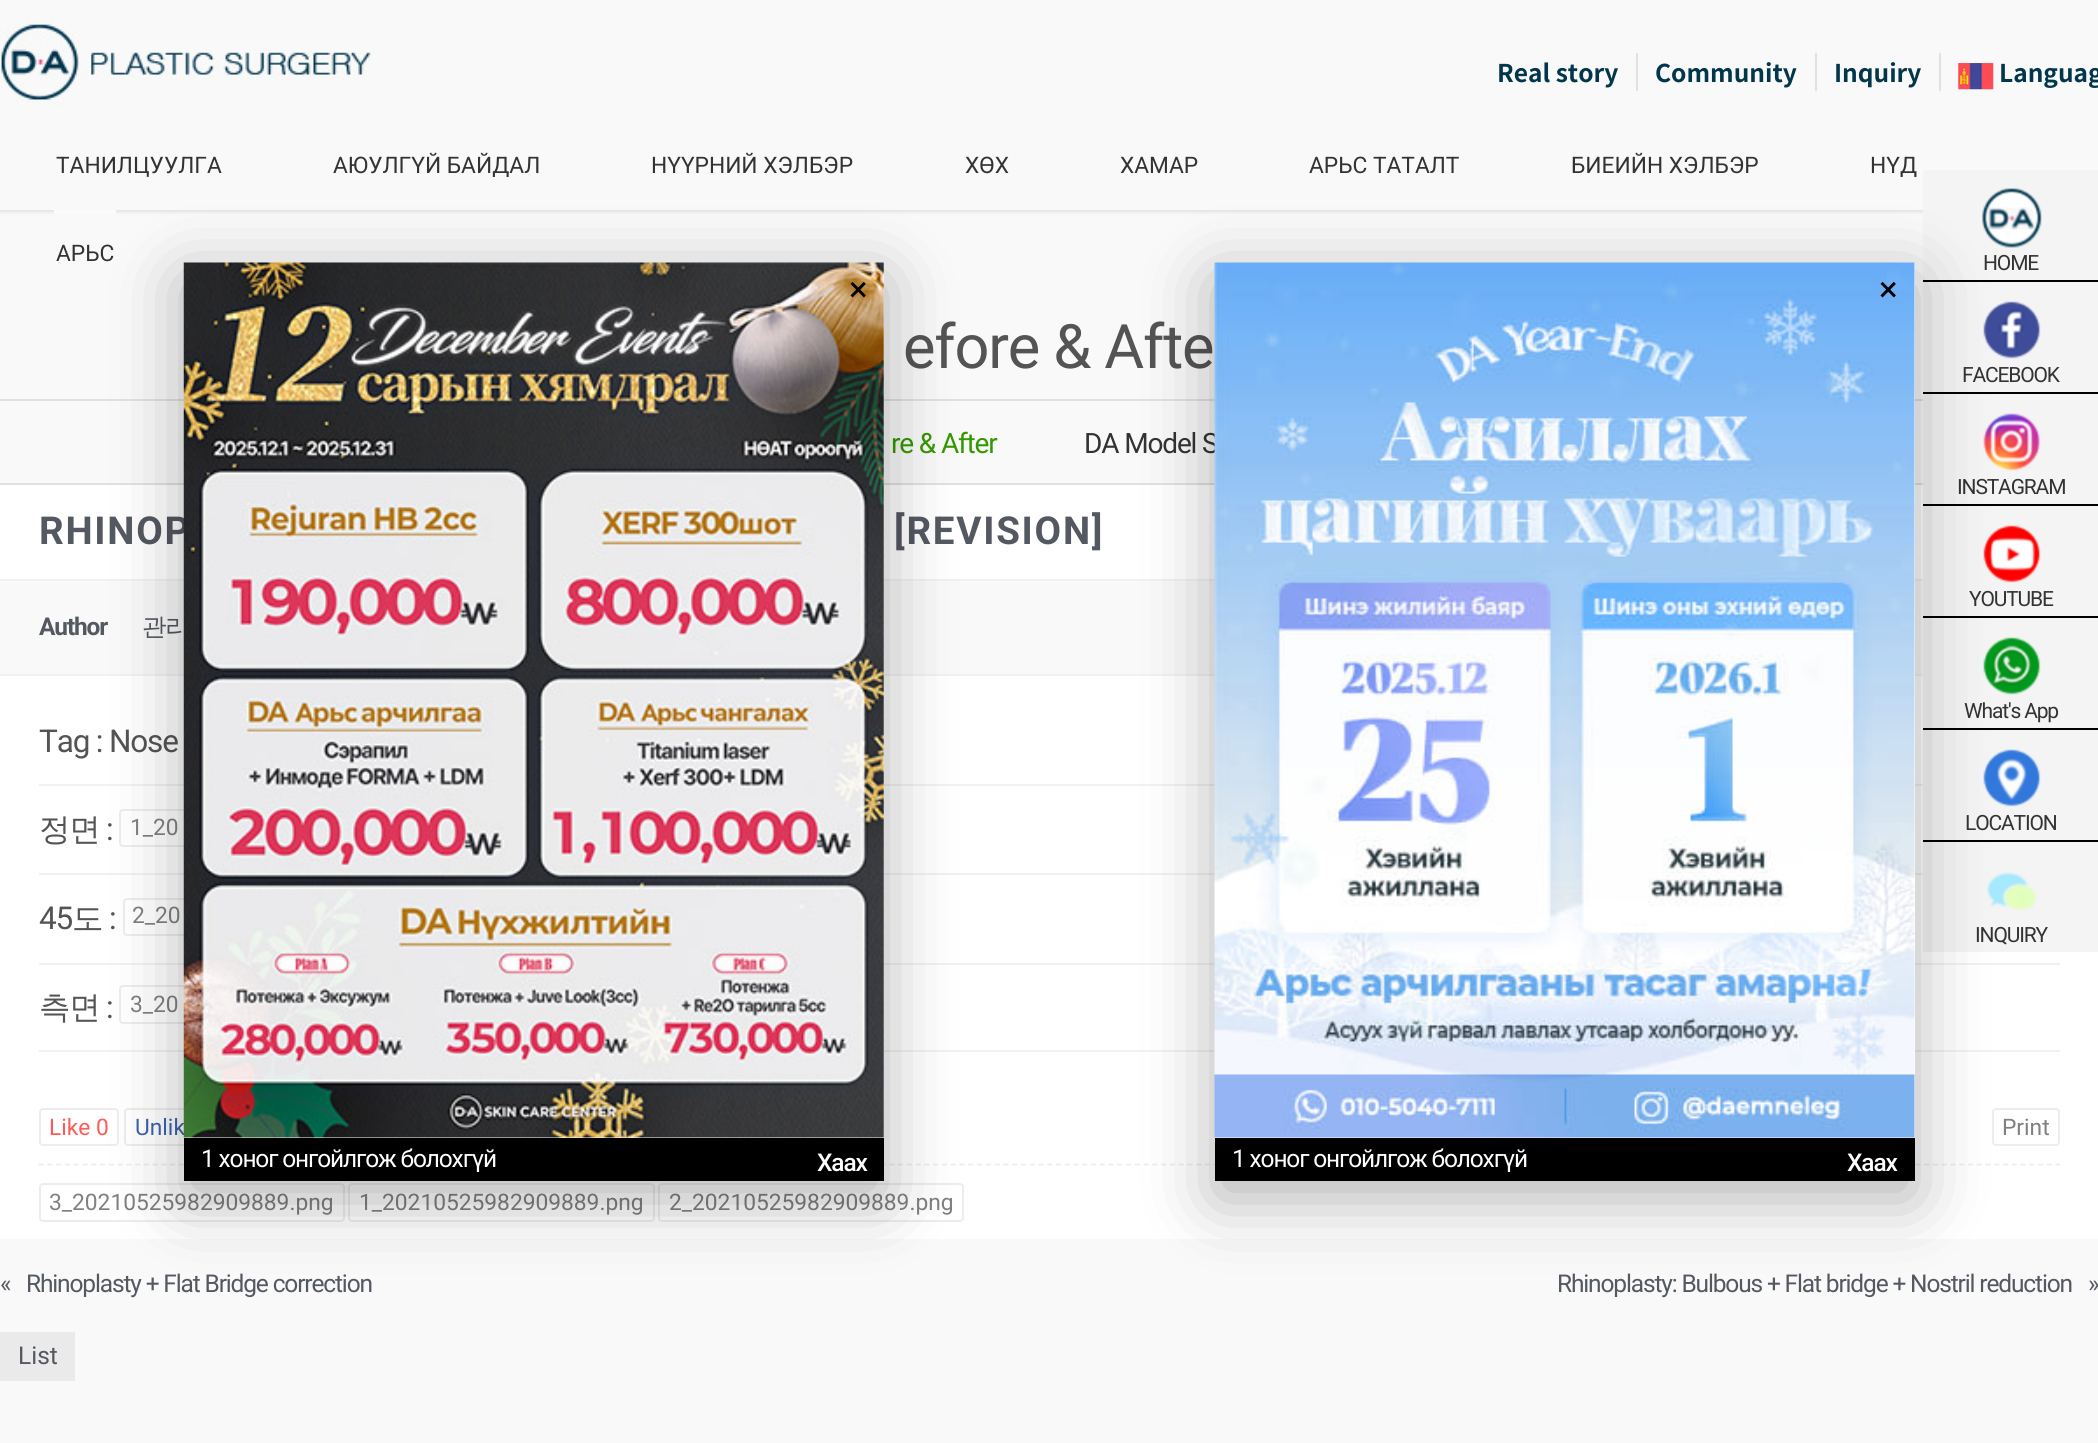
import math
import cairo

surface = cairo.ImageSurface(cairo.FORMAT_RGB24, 2098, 1443)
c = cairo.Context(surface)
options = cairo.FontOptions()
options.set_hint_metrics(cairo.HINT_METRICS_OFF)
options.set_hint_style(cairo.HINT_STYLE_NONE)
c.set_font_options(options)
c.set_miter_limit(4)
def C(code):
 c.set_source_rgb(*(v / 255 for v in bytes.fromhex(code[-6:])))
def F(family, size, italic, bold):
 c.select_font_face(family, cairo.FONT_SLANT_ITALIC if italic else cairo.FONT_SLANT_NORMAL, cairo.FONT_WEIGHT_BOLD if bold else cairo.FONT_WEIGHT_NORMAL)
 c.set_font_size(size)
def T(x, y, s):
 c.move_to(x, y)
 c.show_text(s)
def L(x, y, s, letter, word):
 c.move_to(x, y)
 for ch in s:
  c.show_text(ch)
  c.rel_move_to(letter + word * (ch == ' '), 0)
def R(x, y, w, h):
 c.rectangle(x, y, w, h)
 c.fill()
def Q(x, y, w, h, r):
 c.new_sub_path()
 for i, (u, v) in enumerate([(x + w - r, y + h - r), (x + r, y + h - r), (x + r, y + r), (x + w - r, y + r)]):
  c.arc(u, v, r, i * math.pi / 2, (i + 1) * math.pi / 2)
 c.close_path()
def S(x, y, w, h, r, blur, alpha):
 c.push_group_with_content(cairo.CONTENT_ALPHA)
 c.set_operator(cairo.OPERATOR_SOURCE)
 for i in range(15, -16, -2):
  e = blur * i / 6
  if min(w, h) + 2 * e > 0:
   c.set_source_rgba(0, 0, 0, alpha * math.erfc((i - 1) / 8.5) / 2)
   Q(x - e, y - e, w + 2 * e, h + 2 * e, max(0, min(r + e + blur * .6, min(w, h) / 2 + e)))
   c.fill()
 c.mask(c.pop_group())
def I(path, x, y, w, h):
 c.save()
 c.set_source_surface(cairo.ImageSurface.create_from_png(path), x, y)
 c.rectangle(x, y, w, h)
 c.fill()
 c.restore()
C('f9f9f9')
c.paint()
C('000000')
S(-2,-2,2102,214,0,2,.1)
C('f9f9f9')
R(0,0,2098,210)
C('e1e1e1')
R(1636,53,2,38)
F('Noto Sans KR',24.5,0,1)
C('02364b')
T(1497,82,'Real story')
C('e1e1e1')
R(1815,53,2,38)
C('02364b')
T(1655,82,'Community')
C('e1e1e1')
R(1939,53,2,38)
C('02364b')
T(1834,82,'Inquiry')
I('1.png',1958,63,36,27)
T(1999,82,'Languag')
I('2.png',0,17,371,89)
F('Roboto',22.75,0,0)
C('333333')
T(56,173,'ТАНИЛЦУУЛГА')
T(333,173,'АЮУЛГҮЙ БАЙДАЛ')
T(651,173,'НҮҮРНИЙ ХЭЛБЭР')
T(965,173,'ХӨХ')
T(1120,173,'ХАМАР')
T(1309,173,'АРЬС ТАТАЛТ')
T(1571,173,'БИЕИЙН ХЭЛБЭР')
T(1870,173,'НҮД')
C('fafafa')
R(54,210,62,5)
C('333333')
T(56,261,'АРЬС')
C('f4f4f4')
R(1923,170,175,110)
C('000000')
R(1923,280,175,2)
I('3.png',1982,188,60,60)
F('Roboto',21,0,0)
C('333333')
L(1983,270,'HOME',-1.15,0)
C('f4f4f4')
R(1923,282,175,110)
C('000000')
R(1923,392,175,2)
I('4.png',1983,301,58,58)
C('333333')
L(1962,382,'FACEBOOK',-1.15,0)
C('ffffff')
R(0,485,2098,754)
C('f4f4f4')
R(1923,394,175,110)
C('000000')
R(1923,504,175,2)
I('5.png',1983,413,58,58)
C('333333')
L(1957,494,'INSTAGRAM',-1.15,0)
C('f4f4f4')
R(1923,506,175,110)
C('000000')
R(1923,616,175,2)
I('6.png',1983,525,58,58)
C('333333')
L(1969,606,'YOUTUBE',-1.15,0)
C('f4f4f4')
R(1923,618,175,110)
C('000000')
R(1923,728,175,2)
I('7.png',1983,637,58,58)
C('333333')
L(1964,718,'What\'s App',-1.15,0)
C('f4f4f4')
R(1923,730,175,110)
C('000000')
R(1923,840,175,2)
I('8.png',1983,749,58,58)
C('333333')
L(1965,830,'LOCATION',-1.15,0)
C('f4f4f4')
R(1923,842,175,110)
I('9.png',1986,872,51,39)
C('333333')
L(1975,942,'INQUIRY',-1.15,0)
F('Roboto',61.25,0,0)
C('545454')
L(903,368,'efore & Afte',-1.15,0)
C('e1e1e1')
R(0,399,1923,2)
R(0,483,1923,2)
F('Roboto',28,0,0)
C('339900')
L(891,453,'re & After',-1.15,0)
C('333333')
L(1084,453,'DA Model S',-1.15,0)
F('Roboto',38.5,0,1)
C('545861')
L(39,544,'RHINOP',1.75,0)
L(894,544,'[REVISION]',1.75,0)
C('f9f9f9')
R(0,581,1923,93)
C('f1f1f1')
R(0,579,1923,2)
R(0,674,1923,2)
F('Roboto',24.5,0,1)
C('545861')
L(39,635,'Author',-1.15,0)
F('WenQuanYi Zen Hei Medium',24.5,0,0)
L(142,635,'관리',-1.15,0)
F('Roboto',31.5,0,0)
C('545454')
L(39,752,'Tag : Nose',-1.15,0)
C('f1f1f1')
R(39,784,1884,2)
F('WenQuanYi Zen Hei Medium',31.5,0,0)
C('545454')
L(39,840,'정면',-1.15,0)
F('Roboto',31.5,0,0)
L(106,840,':',-1.15,0)
Q(120,810,304,36,3)
C('ededed')
c.stroke()
F('Roboto',22.75,0,0)
C('808080')
T(130,835,'1_20')
C('f1f1f1')
R(39,873,1884,2)
F('Roboto',31.5,0,0)
C('545454')
L(39,929,'45',-1.15,0)
F('WenQuanYi Zen Hei Medium',31.5,0,0)
L(72,929,'도',-1.15,0)
F('Roboto',31.5,0,0)
L(109,929,':',-1.15,0)
Q(124,899,302,36,3)
C('ededed')
c.stroke()
F('Roboto',22.75,0,0)
C('808080')
T(132,923,'2_20')
C('f1f1f1')
R(39,963,2021,2)
F('WenQuanYi Zen Hei Medium',31.5,0,0)
C('545454')
L(39,1018,'측면',-1.15,0)
F('Roboto',31.5,0,0)
L(106,1018,':',-1.15,0)
Q(120,986,304,37,3)
C('ededed')
c.stroke()
F('Roboto',22.75,0,0)
C('808080')
T(130,1012,'3_20')
C('f1f1f1')
R(39,1050,2021,2)
Q(40,1109,78,36,3)
C('ededed')
c.stroke()
C('ff5959')
T(49,1135,'Like')
L(96,1135,'0',-1.15,0)
Q(125,1109,100,36,3)
C('ededed')
c.stroke()
C('3d62aa')
T(135,1135,'Unlik')
Q(1993,1109,66,36,3)
C('ededed')
c.stroke()
C('808080')
T(2002,1135,'Print')
c.new_path()
c.move_to(38.5,1164.5)
c.line_to(2060,1164.5)
C('ededed')
c.set_line_width(1.8)
c.set_dash([5.25,3.52])
c.stroke()
Q(40,1184,304,37,3)
c.set_line_width(2)
c.set_dash([])
c.stroke()
C('808080')
T(49,1210,'3_20210525982909889.png')
Q(349,1184,305,37,3)
C('ededed')
c.stroke()
C('808080')
T(359,1210,'1_20210525982909889.png')
Q(659,1184,304,37,3)
C('ededed')
c.stroke()
C('808080')
T(669,1210,'2_20210525982909889.png')
F('Roboto',24.5,0,0)
C('545861')
L(0,1292,'«',-1.15,0)
L(26,1292,'Rhinoplasty + Flat Bridge correction',-1.15,0)
L(1557,1292,'Rhinoplasty: Bulbous + Flat bridge + Nostril reduction',-1.15,0)
L(2088,1292,'»',-1.15,0)
C('eaeaea')
R(0,1332,75,49)
C('545861')
T(18,1364,'List')
C('000000')
S(184,280,700,919,0,35,.3)
C('ffffff')
R(184,263,700,875)
I('10.png',183,262,701,876)
F('Roboto',35,0,0)
C('000000')
L(849,301,'×',-1.15,0)
R(184,1138,700,43)
F('Roboto',24.5,0,0)
C('ffffff')
L(201,1167,'1 хоног онгойлгож болохгүй',-1.15,0)
F('Roboto Medium',24.5,0,0)
L(817,1171,'Хаах',-1.15,0)
C('000000')
S(1215,280,700,919,0,35,.3)
C('ffffff')
R(1215,263,700,875)
I('11.png',1214,262,701,876)
F('Roboto',35,0,0)
C('000000')
L(1879,301,'×',-1.15,0)
R(1215,1138,700,43)
F('Roboto',24.5,0,0)
C('ffffff')
L(1232,1167,'1 хоног онгойлгож болохгүй',-1.15,0)
F('Roboto Medium',24.5,0,0)
L(1847,1171,'Хаах',-1.15,0)
surface.write_to_png('o.png')
